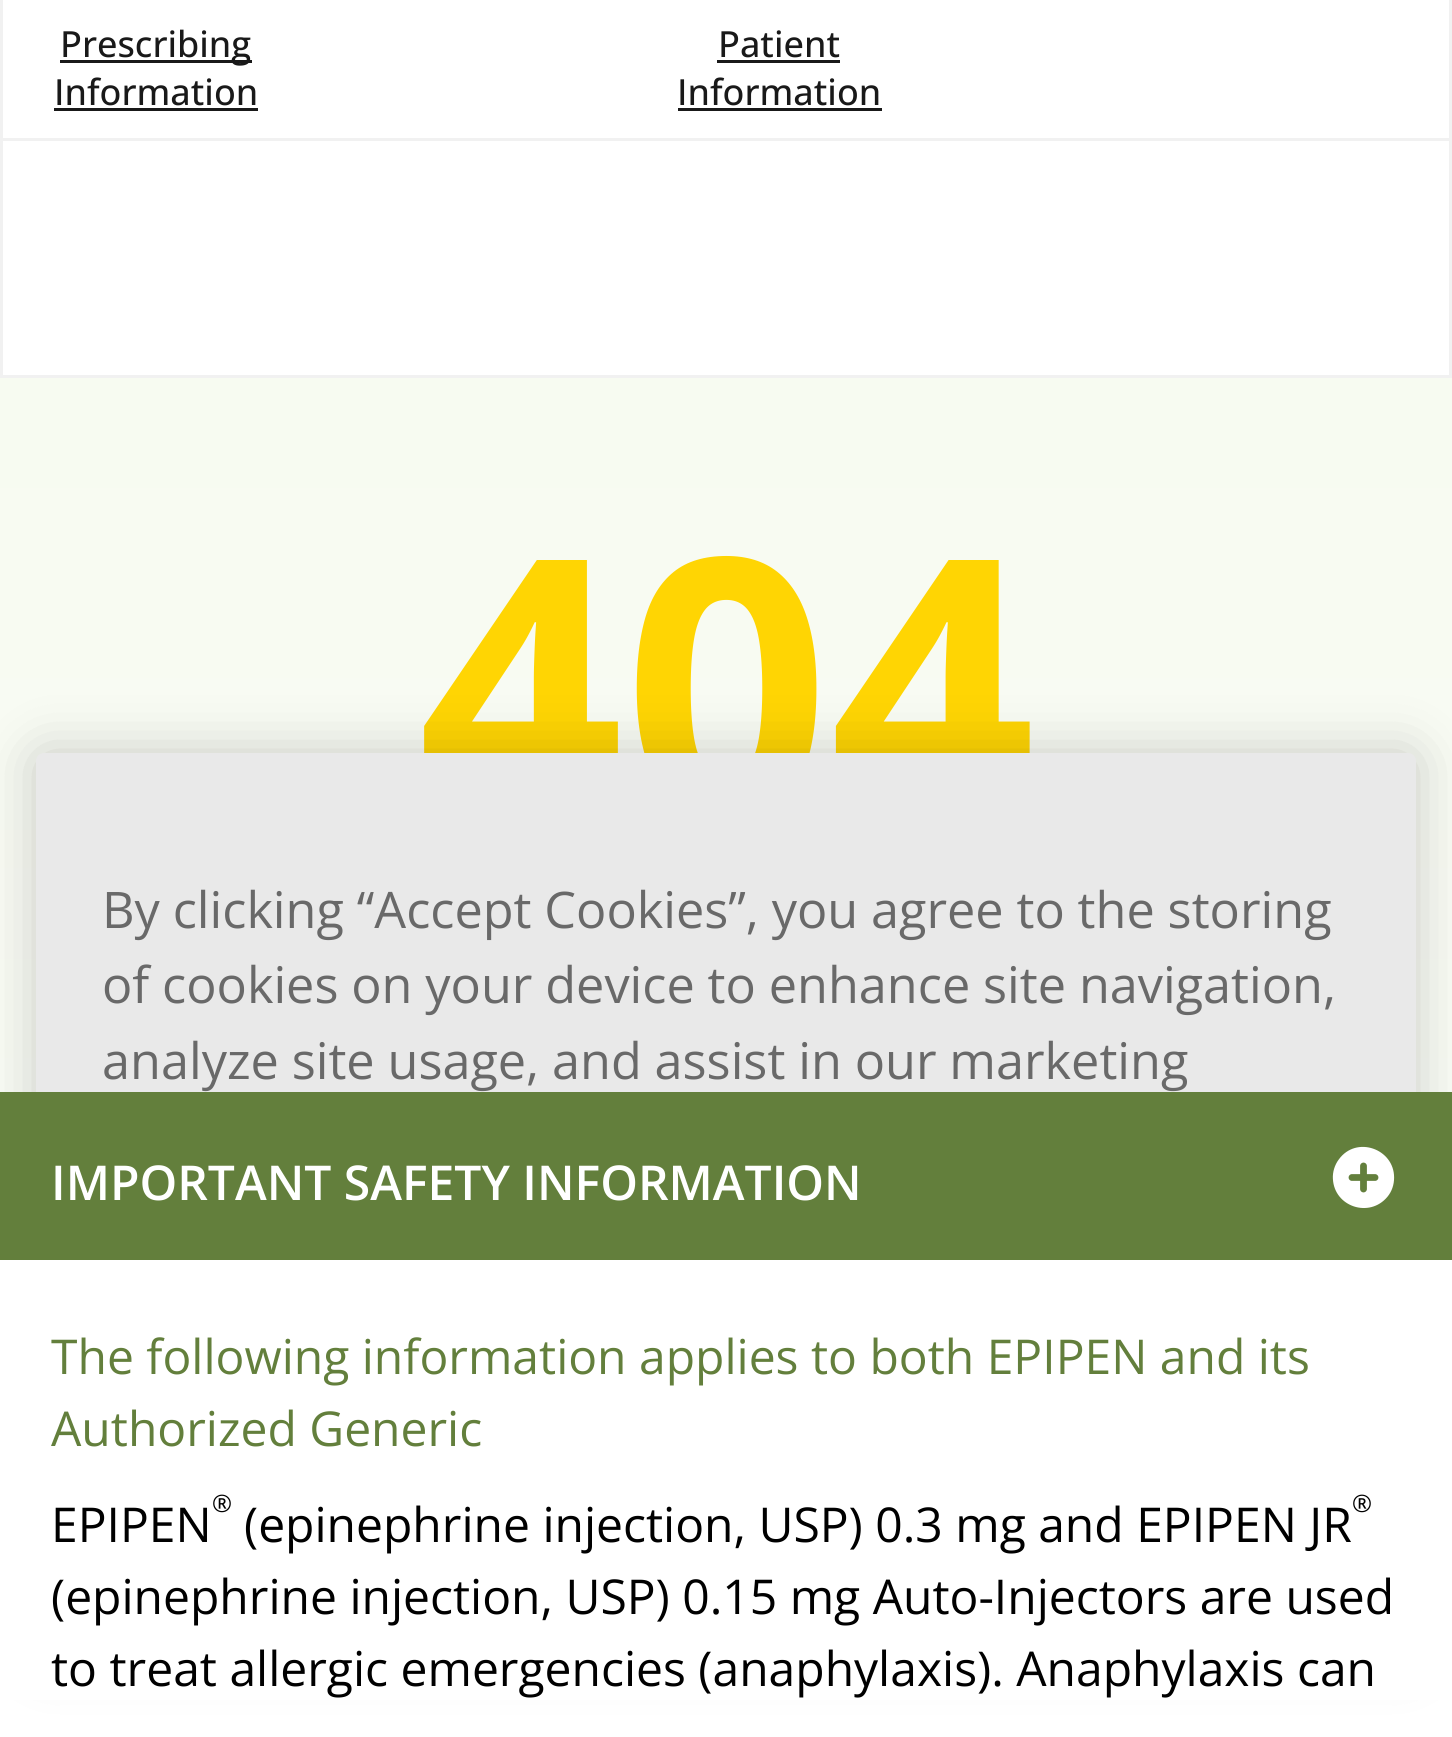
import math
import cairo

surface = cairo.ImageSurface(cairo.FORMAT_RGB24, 1452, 1737)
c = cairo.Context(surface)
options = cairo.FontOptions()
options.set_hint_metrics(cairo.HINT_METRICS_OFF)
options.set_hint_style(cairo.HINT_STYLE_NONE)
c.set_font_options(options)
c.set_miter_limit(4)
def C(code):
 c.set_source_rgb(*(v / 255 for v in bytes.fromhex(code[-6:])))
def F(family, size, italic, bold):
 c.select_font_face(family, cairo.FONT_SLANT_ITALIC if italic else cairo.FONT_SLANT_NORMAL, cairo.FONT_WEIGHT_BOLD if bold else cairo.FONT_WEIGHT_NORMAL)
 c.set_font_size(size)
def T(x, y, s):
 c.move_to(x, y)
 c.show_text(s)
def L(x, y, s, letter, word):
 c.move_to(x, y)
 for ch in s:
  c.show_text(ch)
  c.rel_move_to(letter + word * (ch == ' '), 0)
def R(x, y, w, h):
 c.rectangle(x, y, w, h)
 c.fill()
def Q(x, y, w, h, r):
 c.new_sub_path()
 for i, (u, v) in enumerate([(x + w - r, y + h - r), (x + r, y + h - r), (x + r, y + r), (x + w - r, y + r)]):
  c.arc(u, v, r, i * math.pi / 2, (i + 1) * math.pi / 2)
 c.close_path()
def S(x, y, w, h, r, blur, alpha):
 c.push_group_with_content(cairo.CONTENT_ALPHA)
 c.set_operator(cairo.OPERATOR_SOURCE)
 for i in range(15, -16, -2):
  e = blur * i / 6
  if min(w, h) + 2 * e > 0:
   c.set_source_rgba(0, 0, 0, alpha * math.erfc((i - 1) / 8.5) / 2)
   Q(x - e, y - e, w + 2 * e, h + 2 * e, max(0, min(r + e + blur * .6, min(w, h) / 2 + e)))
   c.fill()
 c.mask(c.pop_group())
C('ffffff')
c.paint()
c.rectangle(1.5,-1.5,1449,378)
C('f1f1f1')
c.set_line_width(3)
c.stroke()
R(3,138,1446,3)
C('191919')
R(60,60,192,3)
F('Open Sans Medium',36,0,0)
T(60,57,'Prescribing')
T(54,105,'Information')
R(54,108,204,3)
T(718,57,'Patient')
R(717,60,123,3)
T(677,105,'Information')
R(678,108,204,3)
gradient = cairo.LinearGradient(726,0,726,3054)
gradient.add_color_stop_rgba(0,0.965,0.98,0.937,1)
gradient.add_color_stop_rgba(1,1,1,1,1)
c.set_source(gradient)
R(0,378,1452,714)
F('Open Sans',360,0,1)
C('ffd503')
T(418,817,'404')
C('000000')
S(36,753,1380,903,8,27,.2)
C('e9e9e9')
Q(36,753,1380,903,8)
c.fill()
C('ffffff')
R(0,1260,1452,440)
C('637f3c')
R(0,1092,1452,168)
F('Open Sans SemiBold',48,0,0)
C('ffffff')
T(51,1200,'IMPORTANT SAFETY INFORMATION')
c.new_path()
c.move_to(1364,1166)
c.close_path()
c.move_to(1375,1178)
c.close_path()
c.move_to(1398,1178)
c.curve_to(1398,1185,1395,1193,1390,1199)
c.curve_to(1370,1223,1331,1210,1329,1179)
c.curve_to(1329,1171,1331,1164,1336,1157)
c.curve_to(1356,1131,1398,1145,1398,1178)
c.close_path()
c.fill()
c.new_path()
c.move_to(1363.5,1166)
c.line_to(1363.5,1189)
c.move_to(1375,1177.5)
c.line_to(1352,1177.5)
c.move_to(1397.5,1177.5)
c.curve_to(1397.5,1185.5,1395,1193,1390,1199)
c.curve_to(1370,1223,1331,1210,1329.5,1179)
c.curve_to(1329,1171.5,1331.5,1163.5,1336,1157.5)
c.curve_to(1355.5,1130.5,1397.5,1145.5,1397.5,1177.5)
c.close_path()
C('637f3c')
c.set_line_width(6.8)
c.set_line_cap(cairo.LINE_CAP_ROUND)
c.set_line_join(cairo.LINE_JOIN_ROUND)
c.stroke()
F('Open Sans',48,0,0)
T(51,1374,'The following information applies to both EPIPEN and its')
T(51,1446,'Authorized Generic')
C('000000')
T(51,1542,'EPIPEN')
F('Open Sans',24,0,0)
T(212,1512,'®')
F('Open Sans',48,0,0)
T(244,1542,'(epinephrine injection, USP) 0.3 mg and EPIPEN JR')
F('Open Sans',24,0,0)
T(1352,1512,'®')
F('Open Sans',48,0,0)
T(51,1614,'(epinephrine injection, USP) 0.15 mg Auto-Injectors are used')
T(51,1686,'to treat allergic emergencies (anaphylaxis). Anaphylaxis can')
F('Open Sans',50.4,0,0)
C('696969')
L(102,928,'By clicking “Accept Cookies”, you agree to the storing',0,-.25)
L(102,1003,'of cookies on your device to enhance site navigation,',0,-.25)
L(102,1079,'analyze site usage, and assist in our marketing',0,-.25)
surface.write_to_png('o.png')
